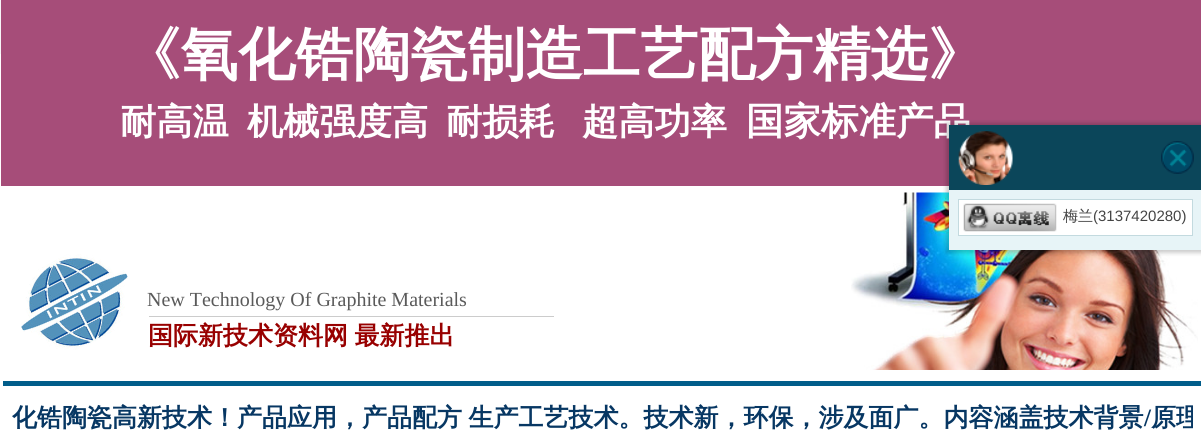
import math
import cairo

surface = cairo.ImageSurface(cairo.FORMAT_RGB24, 1201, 438)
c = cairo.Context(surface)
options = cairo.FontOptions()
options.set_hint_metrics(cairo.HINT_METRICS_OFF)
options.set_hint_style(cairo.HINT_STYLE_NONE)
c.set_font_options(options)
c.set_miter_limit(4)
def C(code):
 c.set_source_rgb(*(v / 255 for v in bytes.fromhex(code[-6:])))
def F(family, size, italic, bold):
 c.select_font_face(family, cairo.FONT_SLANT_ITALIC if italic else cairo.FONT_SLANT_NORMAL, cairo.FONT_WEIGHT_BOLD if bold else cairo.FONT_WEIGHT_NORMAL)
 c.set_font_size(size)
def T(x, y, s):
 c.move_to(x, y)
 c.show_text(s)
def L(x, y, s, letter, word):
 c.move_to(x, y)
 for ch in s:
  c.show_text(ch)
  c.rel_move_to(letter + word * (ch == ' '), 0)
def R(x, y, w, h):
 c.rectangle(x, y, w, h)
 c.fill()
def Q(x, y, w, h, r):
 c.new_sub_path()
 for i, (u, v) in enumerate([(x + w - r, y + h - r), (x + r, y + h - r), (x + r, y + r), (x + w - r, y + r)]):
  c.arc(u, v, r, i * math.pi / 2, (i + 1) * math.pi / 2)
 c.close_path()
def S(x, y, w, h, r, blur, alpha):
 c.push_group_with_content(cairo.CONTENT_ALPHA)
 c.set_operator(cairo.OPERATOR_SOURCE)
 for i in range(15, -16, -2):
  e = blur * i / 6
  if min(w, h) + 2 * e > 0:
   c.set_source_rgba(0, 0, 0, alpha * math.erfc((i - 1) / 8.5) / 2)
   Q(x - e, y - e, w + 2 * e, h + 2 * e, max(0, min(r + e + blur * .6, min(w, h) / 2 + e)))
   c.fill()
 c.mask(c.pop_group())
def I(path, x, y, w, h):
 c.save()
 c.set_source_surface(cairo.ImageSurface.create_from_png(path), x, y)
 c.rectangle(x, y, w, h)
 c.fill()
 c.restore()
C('ffffff')
c.paint()
C('f7f7f8')
R(0,0,1,54)
C('a64d79')
R(1,0,1200,186)
F('WenQuanYi Zen Hei',57.5,0,1)
C('ffffff')
T(123,74,'《氧化锆陶瓷制造工艺配方精选》')
F('WenQuanYi Zen Hei',36.25,0,1)
T(120,134,'耐高温')
T(247,134,'机械强度高')
T(446,134,'耐损耗')
T(582,134,'超高功率')
F('WenQuanYi Zen Hei',37.5,0,1)
T(746,134,'国家标准产品')
I('1.png',21,254,107,96)
F('Liberation Serif',20,0,0)
C('5a5a5a')
T(147,306,'New Technology Of Graphite Materials')
I('2.png',851,192,347,178)
C('cccccc')
R(149,316,405,1)
F('WenQuanYi Zen Hei',25,0,1)
C('980000')
L(148,344,'国际新技术资料网 最新推出',0,-1)
C('015d8a')
R(3,381,1198,5)
C('073763')
T(12,426,'化锆陶瓷')
L(112,426,'高新技术！产品应用，产品配方 生产工艺技术。技术新，环保，涉及面广。内容涵盖技术背景',0,-1)
F('Liberation Serif',25,0,1)
T(1144,426,'/')
c.save()
c.rectangle(10,395,1183,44)
c.clip()
F('WenQuanYi Zen Hei',25,0,1)
T(1151,426,'原理')
c.restore()
C('000000')
S(946,123,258,130,0,2,.2)
C('0b465a')
R(949,125,252,65)
I('3.png',958,131,55,54)
I('4.png',1161,141,33,33)
C('e7f4f7')
R(949,190,252,60)
C('ffffff')
c.rectangle(958.5,199.5,234,36)
c.fill_preserve()
C('c3dadf')
c.set_line_width(1)
c.stroke()
I('5.png',963,203,94,29)
F('WenQuanYi Zen Hei Medium',15,0,0)
C('444444')
T(1063,221,'梅兰')
F('Liberation Sans',15,0,0)
T(1093,221,'(3137420280)')
surface.write_to_png('o.png')
